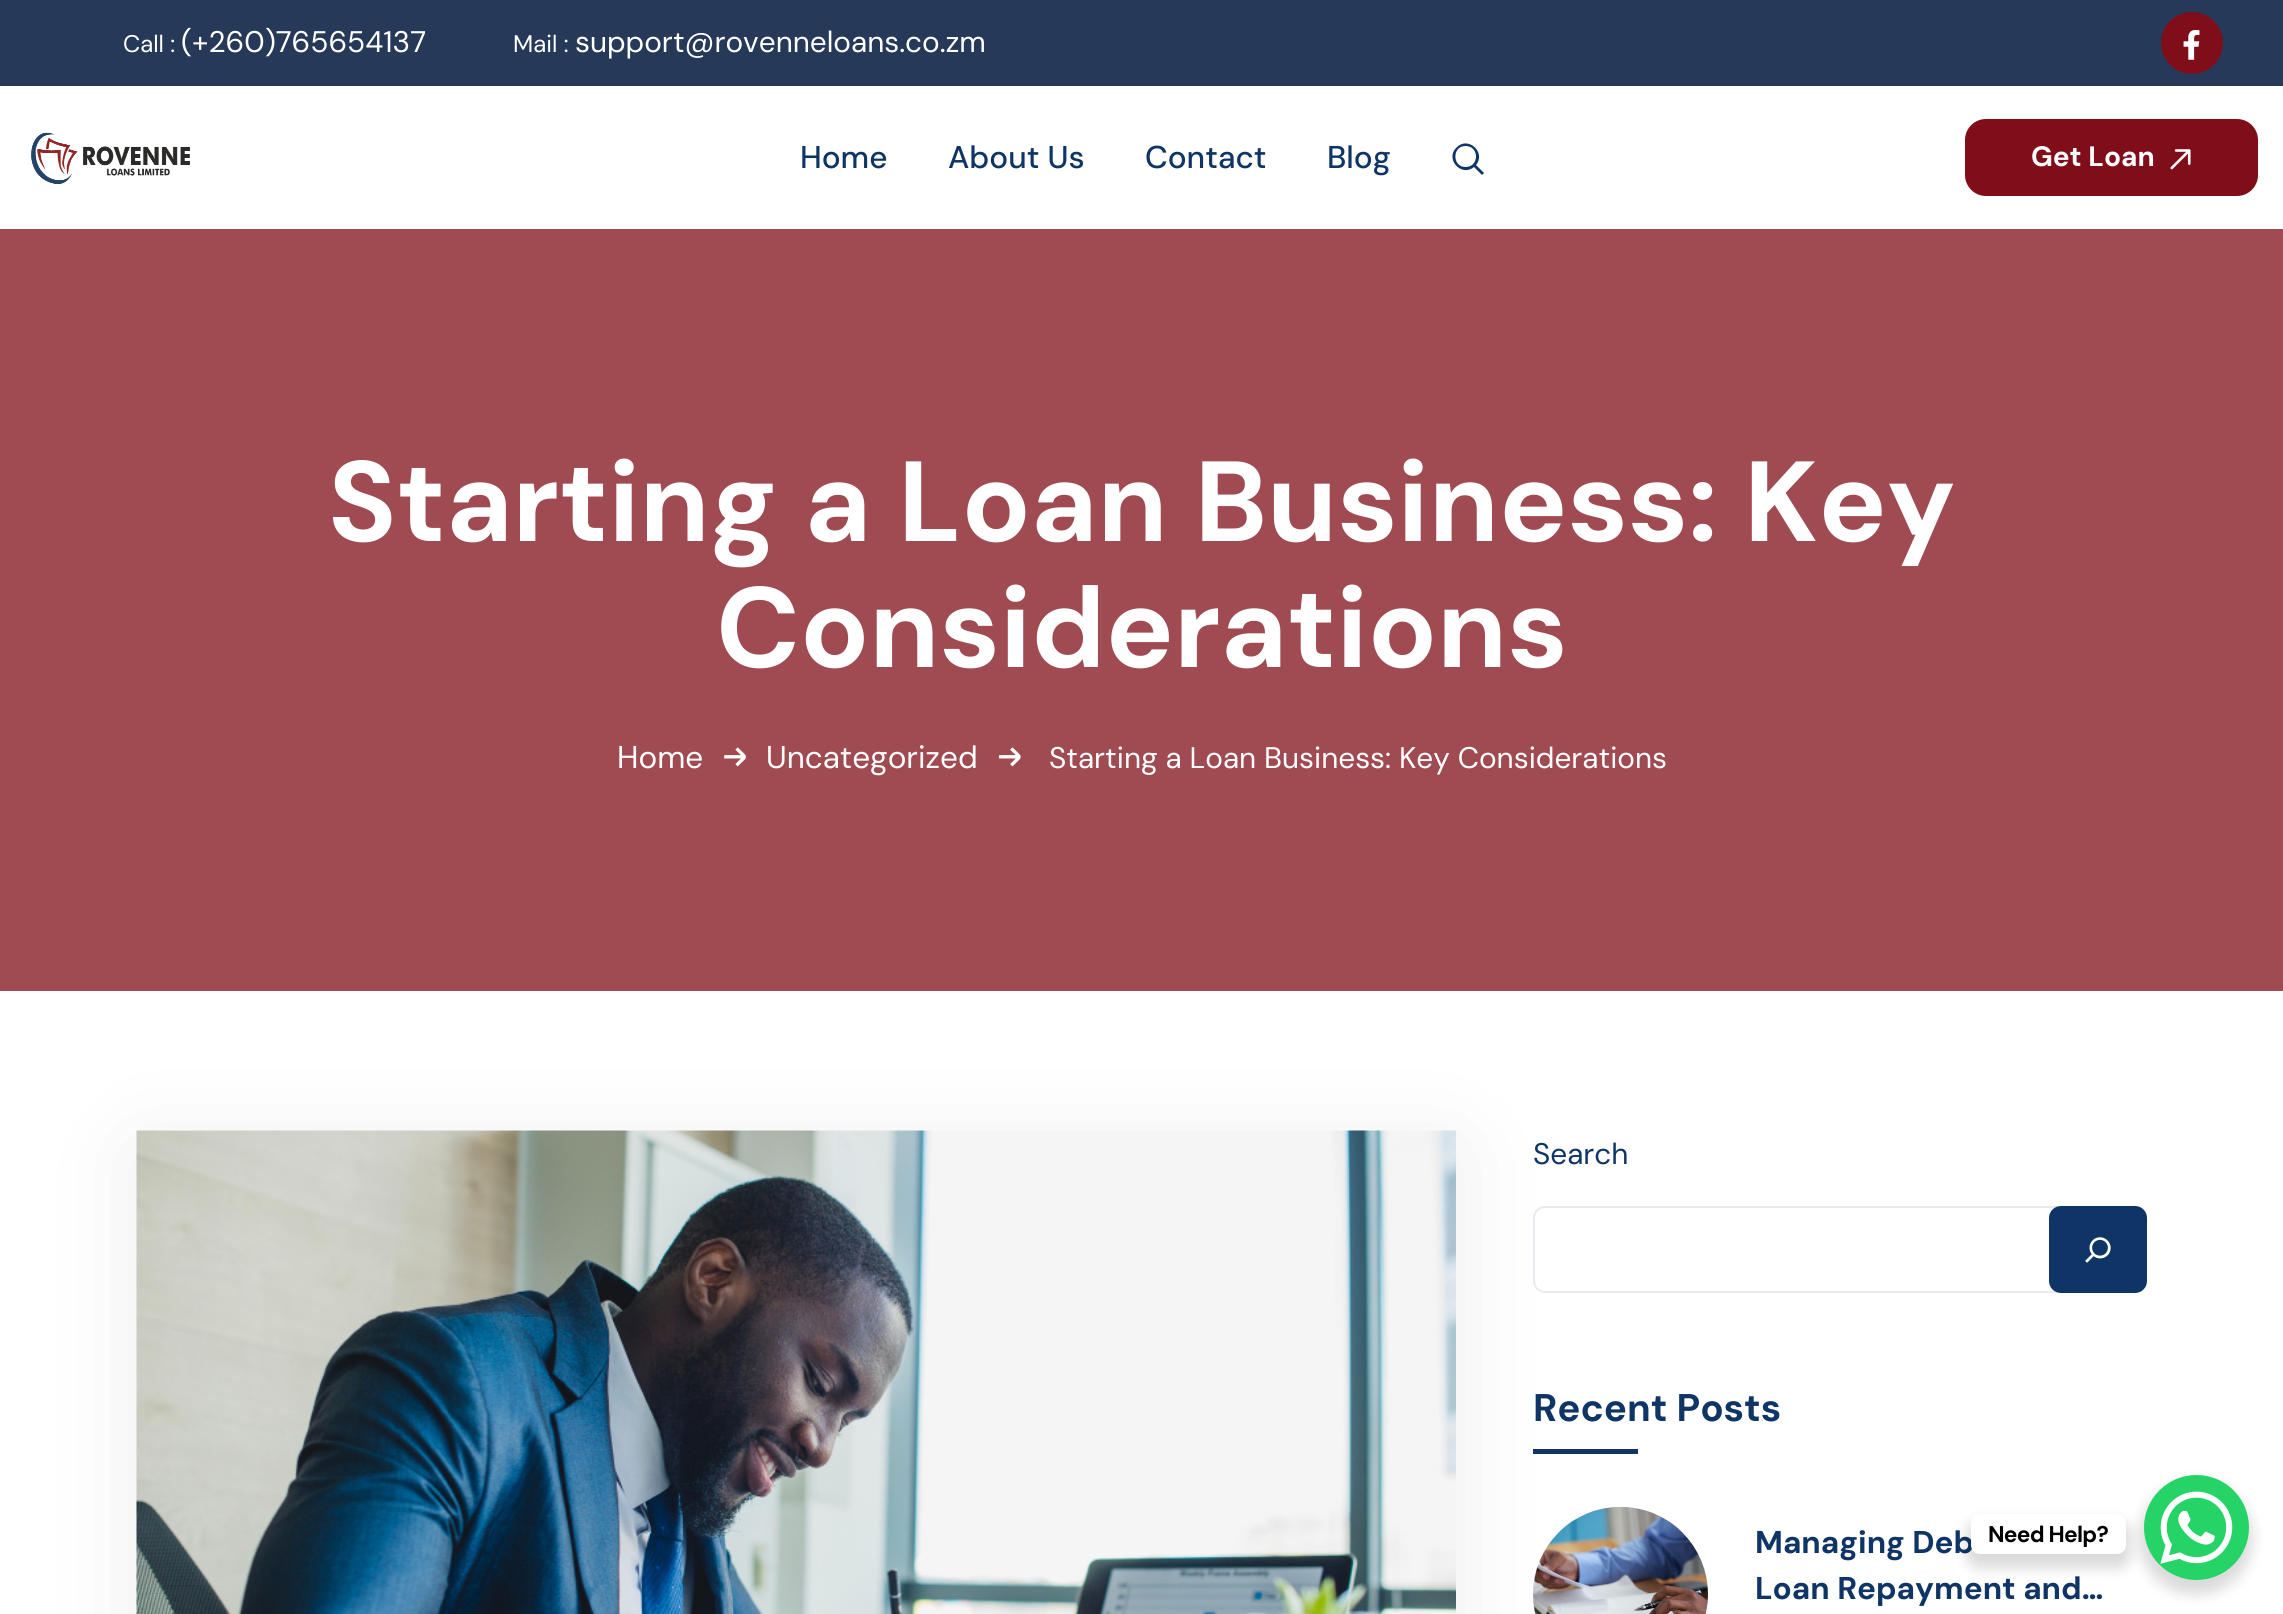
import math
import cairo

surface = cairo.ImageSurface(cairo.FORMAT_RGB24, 2283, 1614)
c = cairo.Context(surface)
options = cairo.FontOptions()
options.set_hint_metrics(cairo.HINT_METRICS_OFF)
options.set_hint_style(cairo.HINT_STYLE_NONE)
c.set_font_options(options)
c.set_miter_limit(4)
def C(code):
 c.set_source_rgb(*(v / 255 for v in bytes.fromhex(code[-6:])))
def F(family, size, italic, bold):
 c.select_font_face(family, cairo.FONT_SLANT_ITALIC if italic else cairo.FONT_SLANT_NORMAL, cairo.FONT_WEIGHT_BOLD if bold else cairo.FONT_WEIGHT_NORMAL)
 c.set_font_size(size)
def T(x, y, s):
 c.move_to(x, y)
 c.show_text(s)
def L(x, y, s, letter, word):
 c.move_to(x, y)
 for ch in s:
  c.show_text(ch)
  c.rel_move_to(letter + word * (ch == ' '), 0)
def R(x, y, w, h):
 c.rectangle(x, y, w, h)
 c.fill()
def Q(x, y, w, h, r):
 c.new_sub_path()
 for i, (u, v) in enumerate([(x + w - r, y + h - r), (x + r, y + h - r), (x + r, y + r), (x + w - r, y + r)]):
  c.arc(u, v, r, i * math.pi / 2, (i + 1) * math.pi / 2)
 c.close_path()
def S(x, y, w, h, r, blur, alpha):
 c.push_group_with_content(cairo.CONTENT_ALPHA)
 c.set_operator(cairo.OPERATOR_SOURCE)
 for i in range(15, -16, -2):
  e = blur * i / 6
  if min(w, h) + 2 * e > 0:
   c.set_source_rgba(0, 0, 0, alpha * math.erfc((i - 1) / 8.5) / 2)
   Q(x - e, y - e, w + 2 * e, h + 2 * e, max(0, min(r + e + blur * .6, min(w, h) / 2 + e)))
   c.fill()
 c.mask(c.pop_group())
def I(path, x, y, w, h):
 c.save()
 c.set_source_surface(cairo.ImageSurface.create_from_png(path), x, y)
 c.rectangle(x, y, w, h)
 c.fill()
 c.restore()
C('ffffff')
c.paint()
C('263959')
R(0,0,2283,86)
F('DM Sans',24,0,0)
C('ffffff')
T(123,52,'Call :')
F('DM Sans',29.75,0,0)
T(181,52,'(+260)765654137')
F('DM Sans',24,0,0)
T(513,52,'Mail :')
F('DM Sans',29.75,0,0)
T(575,52,'support@rovenneloans.co.zm')
C('800e18')
c.new_path()
c.arc(2192,43,31,0,2 * math.pi)
c.fill()
I('1.png',2183,30,17,30)
I('2.png',31,132,159,53)
F('DM Sans Medium',31.5,0,0)
C('0f3567')
T(800,168,'Home')
T(948,168,'About Us')
T(1145,168,'Contact')
T(1327,168,'Blog')
c.new_path()
c.move_to(1484,173)
c.line_to(1476,165)
c.curve_to(1486.5,152.5,1468,135.5,1456.5,147.5)
c.curve_to(1444.5,159,1461.5,177.5,1474,167)
c.line_to(1482,175)
c.close_path()
c.move_to(1465.5,167)
c.curve_to(1452,167,1452,146,1465.5,146)
c.curve_to(1479.5,146,1479.5,167,1465.5,167)
c.close_path()
c.fill()
C('800e18')
Q(1966,120,291,75,20)
c.fill_preserve()
c.stroke()
F('DM Sans',28,0,1)
C('ffffff')
T(2031,166,'Get Loan')
I('3.png',2170,149,21,21)
C('000000')
S(137,1148,1319,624,0,52.5,.07)
C('a04a52')
R(0,229,2283,762)
F('DM Sans',113.75,0,1)
C('ffffff')
T(328,541,'Starting a Loan Business: Key')
T(716,667,'Considerations')
F('DM Sans',31.5,0,0)
T(617,768,'Home')
I('4.png',724,747,22,20)
T(766,768,'Uncategorized')
I('5.png',998,747,23,20)
F('DM Sans',29.75,0,0)
T(1049,768,'Starting a Loan Business: Key Considerations')
I('6.png',136,1130,1320,484)
C('0f3567')
T(1533,1164,'Search')
Q(1534,1207,612,85,11)
C('e7ebf0')
c.stroke()
C('0f3567')
Q(2050,1207,96,85,11)
c.fill_preserve()
c.stroke()
I('7.png',2085,1237,26,26)
F('DM Sans',38.5,0,1)
T(1533,1421,'Recent Posts')
R(1533,1449,105,5)
I('8.png',1533,1506,175,108)
F('DM Sans',31.5,0,1)
T(1755,1553,'Managing Deb')
T(1755,1599,'Loan Repayment and…')
C('000000')
S(2140,1482,112,112,56,7,.15)
C('25d366')
c.arc(2196.5,1527.5,52.5,0,2 * math.pi)
c.fill()
C('000000')
S(1967,1521,163,47,12,7,.15)
C('ffffff')
Q(1971,1514,155,40,9)
c.fill()
F('DM Sans',22.75,0,1)
C('000000')
L(1988,1542,'Need Help?',-.75,0)
I('9.png',2160,1491,73,73)
surface.write_to_png('o.png')
